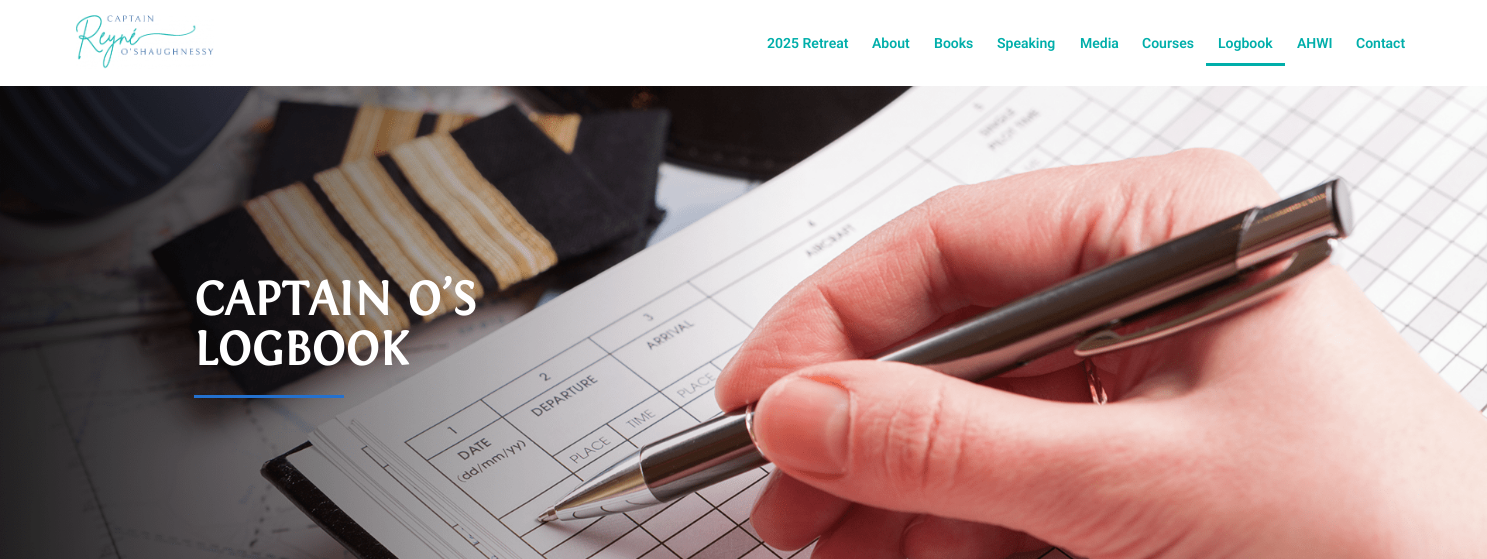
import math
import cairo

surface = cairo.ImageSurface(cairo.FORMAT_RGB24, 1487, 559)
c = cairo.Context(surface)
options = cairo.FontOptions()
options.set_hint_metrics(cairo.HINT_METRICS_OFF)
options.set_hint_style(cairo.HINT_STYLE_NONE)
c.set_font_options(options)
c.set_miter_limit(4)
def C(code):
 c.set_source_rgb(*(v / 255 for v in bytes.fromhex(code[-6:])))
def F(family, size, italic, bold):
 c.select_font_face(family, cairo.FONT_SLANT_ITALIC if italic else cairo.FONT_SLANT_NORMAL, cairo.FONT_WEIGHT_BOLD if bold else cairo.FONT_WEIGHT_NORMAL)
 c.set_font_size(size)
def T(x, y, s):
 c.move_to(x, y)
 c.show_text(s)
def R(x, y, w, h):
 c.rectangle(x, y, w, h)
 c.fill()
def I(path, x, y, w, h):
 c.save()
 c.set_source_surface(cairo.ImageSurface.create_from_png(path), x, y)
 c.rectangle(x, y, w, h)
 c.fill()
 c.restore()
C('ffffff')
c.paint()
I('1.png',76,15,138,54)
F('Roboto SemiBold',14,0,0)
C('00aeaa')
T(767,48,'2025 Retreat')
T(872,48,'About')
T(934,48,'Books')
T(997,48,'Speaking')
T(1080,48,'Media')
T(1142,48,'Courses')
T(1218,48,'Logbook')
R(1206,63,79,3)
T(1297,48,'AHWI')
T(1356,48,'Contact')
I('2.png',0,86,1487,473)
F('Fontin',50,0,1)
C('ffffff')
T(194,315,'CAPTAIN O’S')
T(194,365,'LOGBOOK')
C('2471ce')
R(194,395,150,3)
surface.write_to_png('o.png')
